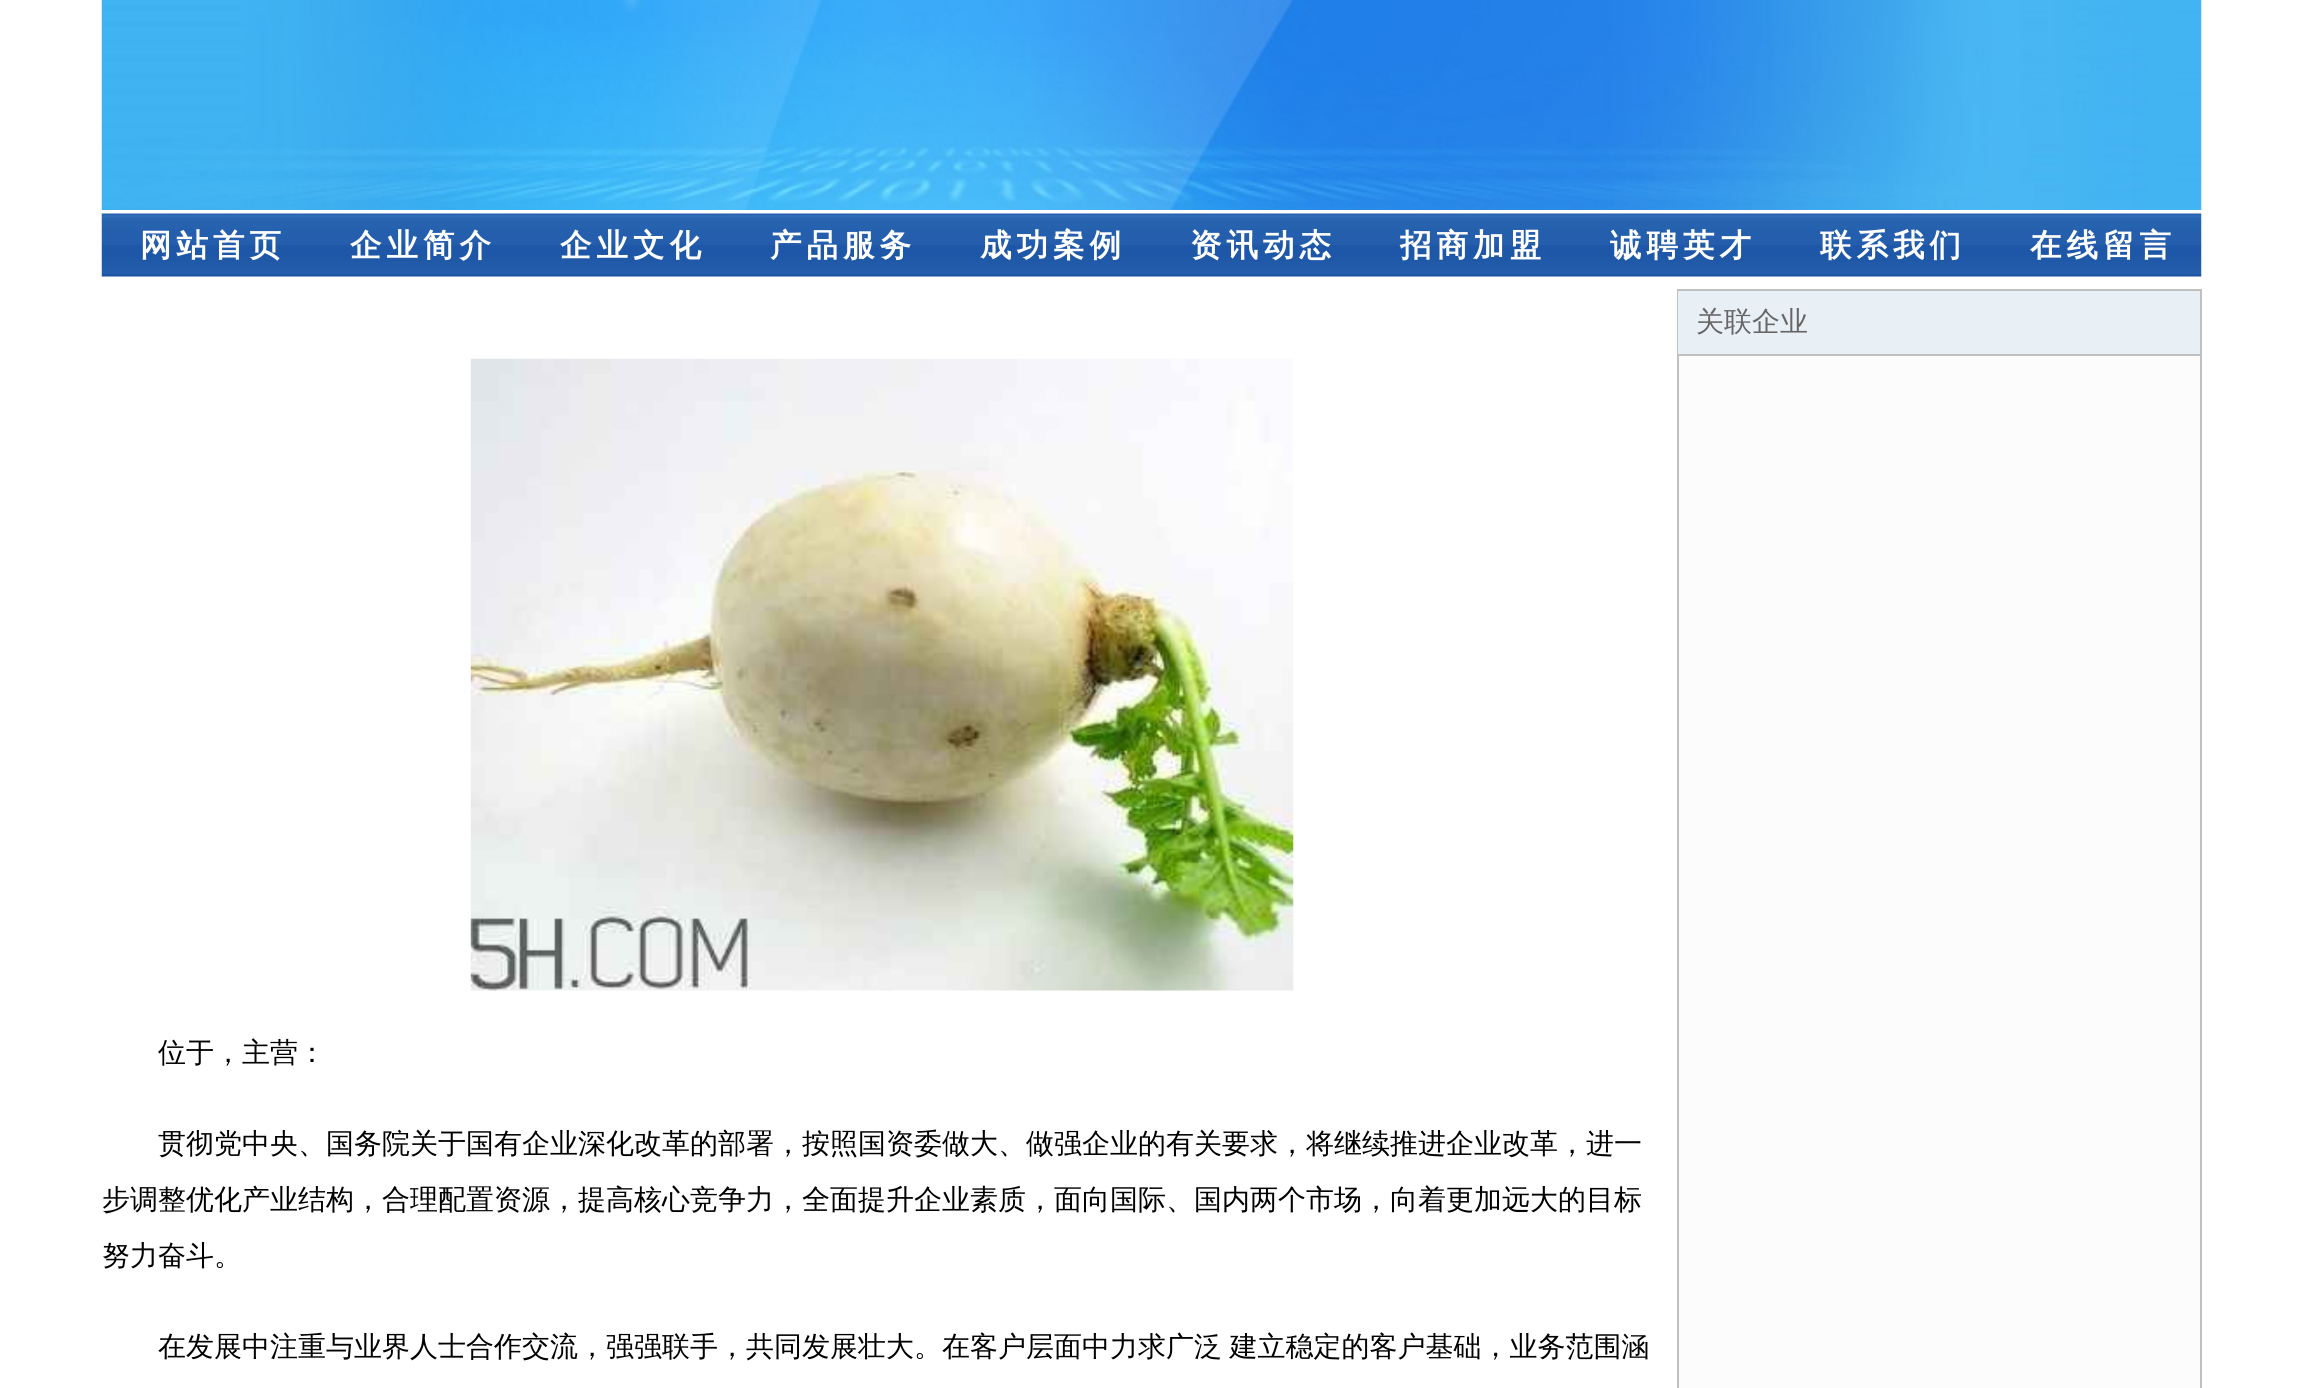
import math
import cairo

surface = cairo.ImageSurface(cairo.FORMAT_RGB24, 2302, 1388)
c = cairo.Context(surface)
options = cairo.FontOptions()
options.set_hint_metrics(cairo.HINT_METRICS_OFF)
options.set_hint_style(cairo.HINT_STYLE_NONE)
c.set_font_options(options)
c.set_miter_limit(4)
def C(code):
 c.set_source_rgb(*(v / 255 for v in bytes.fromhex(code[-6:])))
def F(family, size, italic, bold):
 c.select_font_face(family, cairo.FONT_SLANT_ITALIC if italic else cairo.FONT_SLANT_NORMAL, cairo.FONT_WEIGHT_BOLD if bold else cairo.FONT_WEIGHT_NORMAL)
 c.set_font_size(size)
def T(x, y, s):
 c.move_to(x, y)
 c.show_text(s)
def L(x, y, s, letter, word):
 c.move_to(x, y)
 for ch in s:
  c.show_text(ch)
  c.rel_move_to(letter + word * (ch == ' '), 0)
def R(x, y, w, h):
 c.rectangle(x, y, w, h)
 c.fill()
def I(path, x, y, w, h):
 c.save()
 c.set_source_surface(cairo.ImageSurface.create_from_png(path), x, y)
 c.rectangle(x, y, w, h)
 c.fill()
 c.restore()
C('ffffff')
c.paint()
I('1.png',101,0,2101,210)
I('2.png',101,213,2101,64)
F('WenQuanYi Zen Hei',31.5,0,1)
C('ffffff')
L(140,256,'网站首页',5,0)
L(350,256,'企业简介',5,0)
L(560,256,'企业文化',5,0)
L(770,256,'产品服务',5,0)
L(980,256,'成功案例',5,0)
L(1190,256,'资讯动态',5,0)
L(1400,256,'招商加盟',5,0)
L(1610,256,'诚聘英才',5,0)
L(1820,256,'联系我们',5,0)
L(2030,256,'在线留言',5,0)
C('fcfcfc')
R(1679,356,521,1032)
c.rectangle(1678,290,523,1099)
C('c0c0c0')
c.stroke()
C('e8eff5')
R(1678,291,522,63)
C('c0c0c0')
R(1678,354,522,2)
F('WenQuanYi Zen Hei Medium',28,0,0)
C('666666')
T(1696,331,'关联企业')
I('3.png',470,358,824,633)
C('000000')
T(158,1062,'位于，主营：')
T(158,1153,'贯彻党中央、国务院关于国有企业深化改革的部署，按照国资委做大、做强企业的有关要求，将继续推进企业改革，进一')
T(102,1209,'步调整优化产业结构，合理配置资源，提高核心竞争力，全面提升企业素质，面向国际、国内两个市场，向着更加远大的目标')
T(102,1265,'努力奋斗。')
L(158,1356,'在发展中注重与业界人士合作交流，强强联手，共同发展壮大。在客户层面中力求广泛 建立稳定的客户基础，业务范围涵',0,-1)
surface.write_to_png('o.png')
